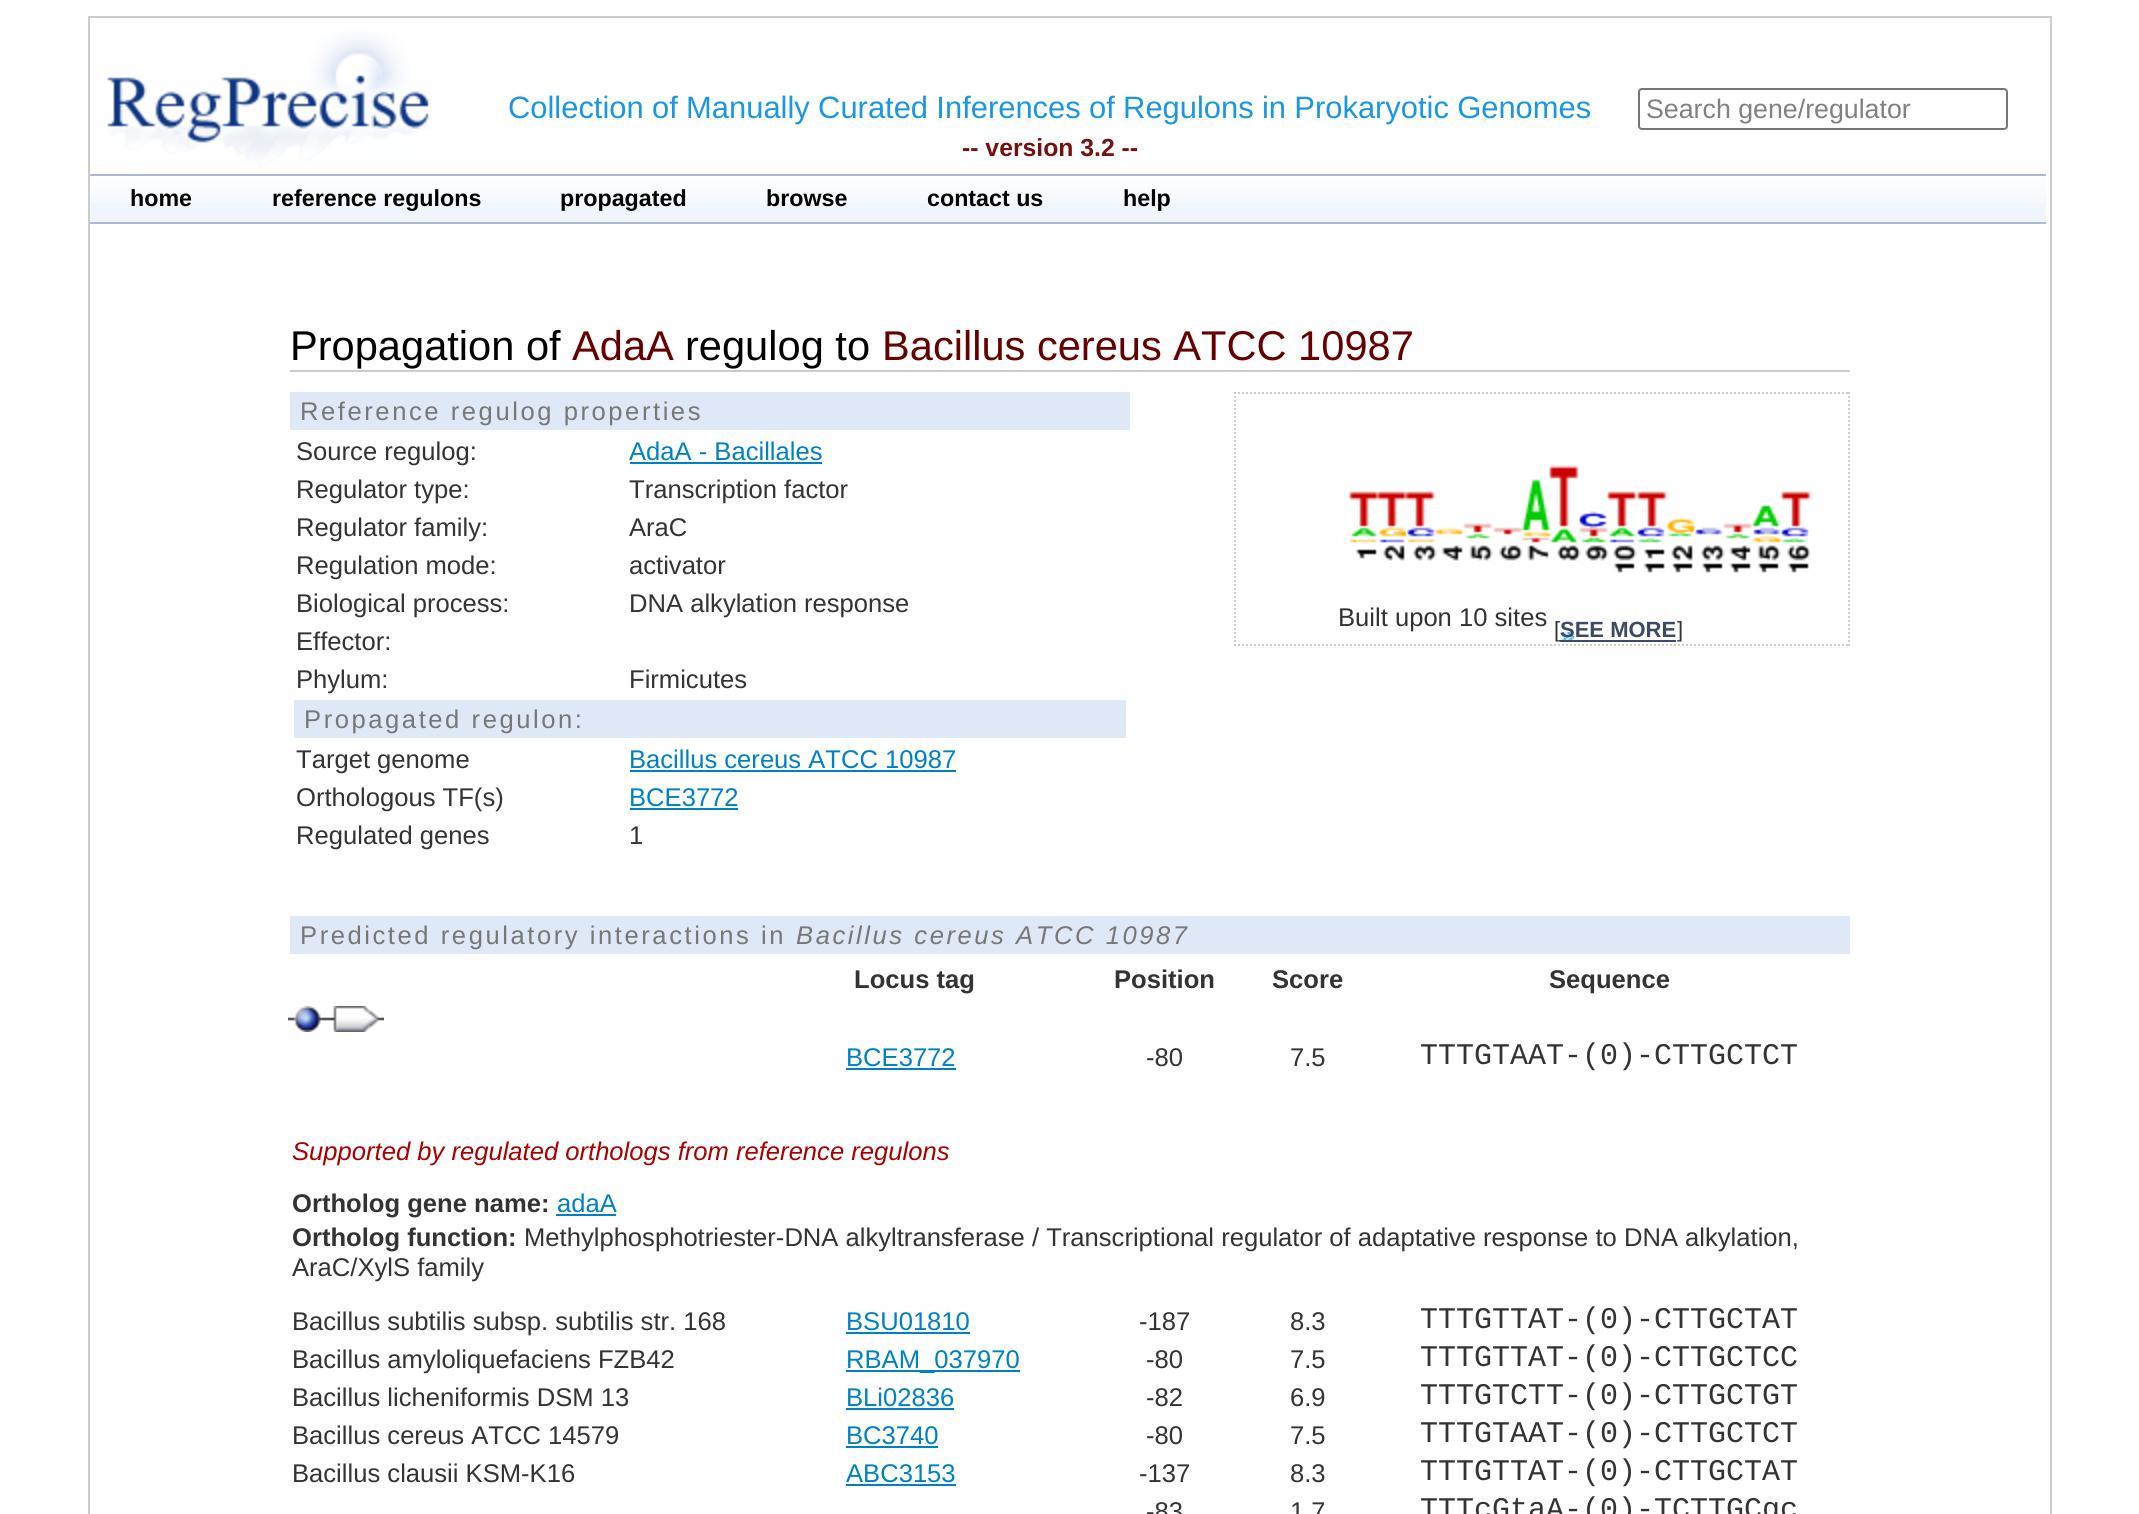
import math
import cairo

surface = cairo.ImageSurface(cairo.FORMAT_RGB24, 2139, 1514)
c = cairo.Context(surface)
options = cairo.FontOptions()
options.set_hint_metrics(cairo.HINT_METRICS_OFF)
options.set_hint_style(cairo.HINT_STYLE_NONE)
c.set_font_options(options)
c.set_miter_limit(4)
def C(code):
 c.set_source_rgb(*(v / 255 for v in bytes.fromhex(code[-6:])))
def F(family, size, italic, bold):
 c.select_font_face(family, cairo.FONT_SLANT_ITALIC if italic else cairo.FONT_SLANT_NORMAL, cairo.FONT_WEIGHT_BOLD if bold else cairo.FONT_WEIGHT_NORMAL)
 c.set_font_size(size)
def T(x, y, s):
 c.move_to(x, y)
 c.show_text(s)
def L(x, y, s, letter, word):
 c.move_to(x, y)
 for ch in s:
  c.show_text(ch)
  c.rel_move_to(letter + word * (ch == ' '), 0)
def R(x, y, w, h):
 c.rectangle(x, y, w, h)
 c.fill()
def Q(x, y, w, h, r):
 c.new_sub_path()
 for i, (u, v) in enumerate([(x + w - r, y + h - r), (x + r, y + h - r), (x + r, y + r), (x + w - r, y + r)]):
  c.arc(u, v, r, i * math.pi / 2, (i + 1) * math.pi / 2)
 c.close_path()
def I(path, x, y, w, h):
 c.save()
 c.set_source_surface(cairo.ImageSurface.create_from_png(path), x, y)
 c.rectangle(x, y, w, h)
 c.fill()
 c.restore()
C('ffffff')
c.paint()
c.rectangle(89,17,1962,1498)
C('cccccc')
c.stroke()
I('1.png',107,31,325,137)
F('Liberation Sans',30.9,0,0)
C('1b96e2')
L(508,118,'Collection of Manually Curated Inferences of Regulons in Prokaryotic Genomes',0,-.25)
F('Liberation Sans',24.75,0,1)
C('771111')
T(962,156,'-- version 3.2 --')
Q(1639,89,368,40,3)
C('767676')
c.stroke()
F('Liberation Sans',26.75,0,0)
C('808080')
T(1646,118,'Search gene/regulator')
C('f0f5fb')
R(90,203,1956,19)
I('2.png',90,176,1956,27)
C('abb9d7')
R(90,174,1956,2)
R(90,222,1956,2)
F('Liberation Sans',23.25,0,1)
C('000000')
T(130,206,'home')
T(272,206,'reference regulons')
T(560,206,'propagated')
T(766,206,'browse')
T(927,206,'contact us')
T(1123,206,'help')
C('cccccc')
R(290,370,1560,2)
F('Liberation Sans',41.6,0,0)
C('000000')
T(290,360,'Propagation of')
C('660000')
T(572,360,'AdaA')
C('000000')
T(685,360,'regulog to')
C('660000')
T(882,360,'Bacillus cereus ATCC 10987')
C('dfe8f6')
R(290,392,840,38)
F('Liberation Sans',25.6,0,0)
C('777777')
L(300,420,'Reference regulog properties',2.55,0)
C('333333')
T(296,460,'Source regulog:')
C('0081c6')
T(629,460,'AdaA - Bacillales')
R(630,462,192,2)
C('333333')
T(296,498,'Regulator type:')
T(629,498,'Transcription factor')
T(296,536,'Regulator family:')
T(629,536,'AraC')
T(296,574,'Regulation mode:')
T(629,574,'activator')
T(296,612,'Biological process:')
T(629,612,'DNA alkylation response')
T(296,650,'Effector:')
T(296,688,'Phylum:')
T(629,688,'Firmicutes')
C('dfe8f6')
R(294,700,832,38)
C('777777')
L(304,728,'Propagated regulon:',2.55,0)
C('333333')
T(296,768,'Target genome')
C('0081c6')
T(629,768,'Bacillus cereus ATCC 10987')
R(630,770,326,2)
C('333333')
T(296,806,'Orthologous TF(s)')
C('0081c6')
T(629,806,'BCE3772')
R(630,808,108,2)
C('333333')
T(296,844,'Regulated genes')
T(629,844,'1')
c.new_path()
c.move_to(1234,393)
c.line_to(1850,393)
C('cccccc')
c.set_dash([2,2])
c.stroke()
c.new_path()
c.move_to(1849,392)
c.line_to(1849,646)
c.stroke()
c.new_path()
c.move_to(1234,645)
c.line_to(1850,645)
c.stroke()
c.new_path()
c.move_to(1235,392)
c.line_to(1235,646)
c.stroke()
I('3.png',1349,465,462,108)
C('333333')
T(1338,626,'Built upon 10 sites')
F('Liberation Sans',22,0,0)
T(1554,637,'[')
C('3c4b64')
R(1560,640,116,2)
I('4.png',1560,632,14,8)
F('Liberation Sans',22,0,1)
T(1560,637,'SEE MORE')
F('Liberation Sans',22,0,0)
C('333333')
T(1677,637,']')
C('dfe8f6')
R(290,916,1560,38)
F('Liberation Sans',25.6,0,0)
C('777777')
L(300,944,'Predicted regulatory interactions in',2.55,0)
F('Liberation Sans',25.6,1,0)
L(796,944,'Bacillus cereus ATCC 10987',2.55,0)
F('Liberation Sans',25.6,0,1)
C('333333')
T(854,988,'Locus tag')
T(1114,988,'Position')
T(1272,988,'Score')
T(1549,988,'Sequence')
I('5.png',288,1006,38,26)
I('6.png',326,1006,58,26)
F('Liberation Sans',25.6,0,0)
C('0081c6')
T(846,1066,'BCE3772')
R(846,1068,110,2)
C('333333')
T(1146,1066,'-80')
T(1290,1066,'7.5')
F('Liberation Mono',30,0,0)
T(1420,1064,'TTTGTAAT-(0)-CTTGCTCT')
F('Liberation Sans',25.6,1,0)
C('aa0000')
T(292,1160,'Supported by regulated orthologs from reference regulons')
F('Liberation Sans',25.6,0,1)
C('333333')
T(292,1212,'Ortholog gene name:')
F('Liberation Sans',25.6,0,0)
C('0081c6')
T(557,1212,'adaA')
R(556,1214,60,2)
F('Liberation Sans',25.6,0,1)
C('333333')
T(292,1246,'Ortholog function:')
F('Liberation Sans',25.6,0,0)
T(524,1246,'Methylphosphotriester-DNA alkyltransferase / Transcriptional regulator of adaptative response to DNA alkylation,')
T(292,1276,'AraC/XylS family')
T(292,1330,'Bacillus subtilis subsp. subtilis str. 168')
C('0081c6')
T(846,1330,'BSU01810')
R(846,1332,124,2)
C('333333')
T(1139,1330,'-187')
T(1290,1330,'8.3')
F('Liberation Mono',30,0,0)
T(1420,1328,'TTTGTTAT-(0)-CTTGCTAT')
F('Liberation Sans',25.6,0,0)
T(292,1368,'Bacillus amyloliquefaciens FZB42')
C('0081c6')
R(846,1370,174,2)
T(846,1368,'RBAM_037970')
C('333333')
T(1146,1368,'-80')
T(1290,1368,'7.5')
F('Liberation Mono',30,0,0)
T(1420,1366,'TTTGTTAT-(0)-CTTGCTCC')
F('Liberation Sans',25.6,0,0)
T(292,1406,'Bacillus licheniformis DSM 13')
C('0081c6')
T(846,1406,'BLi02836')
R(846,1408,108,2)
C('333333')
T(1146,1406,'-82')
T(1290,1406,'6.9')
F('Liberation Mono',30,0,0)
T(1420,1404,'TTTGTCTT-(0)-CTTGCTGT')
F('Liberation Sans',25.6,0,0)
T(292,1444,'Bacillus cereus ATCC 14579')
C('0081c6')
T(846,1444,'BC3740')
R(846,1446,92,2)
C('333333')
T(1146,1444,'-80')
T(1290,1444,'7.5')
F('Liberation Mono',30,0,0)
T(1420,1442,'TTTGTAAT-(0)-CTTGCTCT')
F('Liberation Sans',25.6,0,0)
T(292,1482,'Bacillus clausii KSM-K16')
C('0081c6')
T(846,1482,'ABC3153')
R(846,1484,110,2)
C('333333')
T(1139,1482,'-137')
T(1290,1482,'8.3')
F('Liberation Mono',30,0,0)
T(1420,1480,'TTTGTTAT-(0)-CTTGCTAT')
F('Liberation Sans',25.6,0,0)
T(1146,1520,'-83')
T(1290,1520,'1.7')
F('Liberation Mono',30,0,0)
T(1420,1518,'TTTcGtaA-(0)-TCTTGCgc')
surface.write_to_png('o.png')
